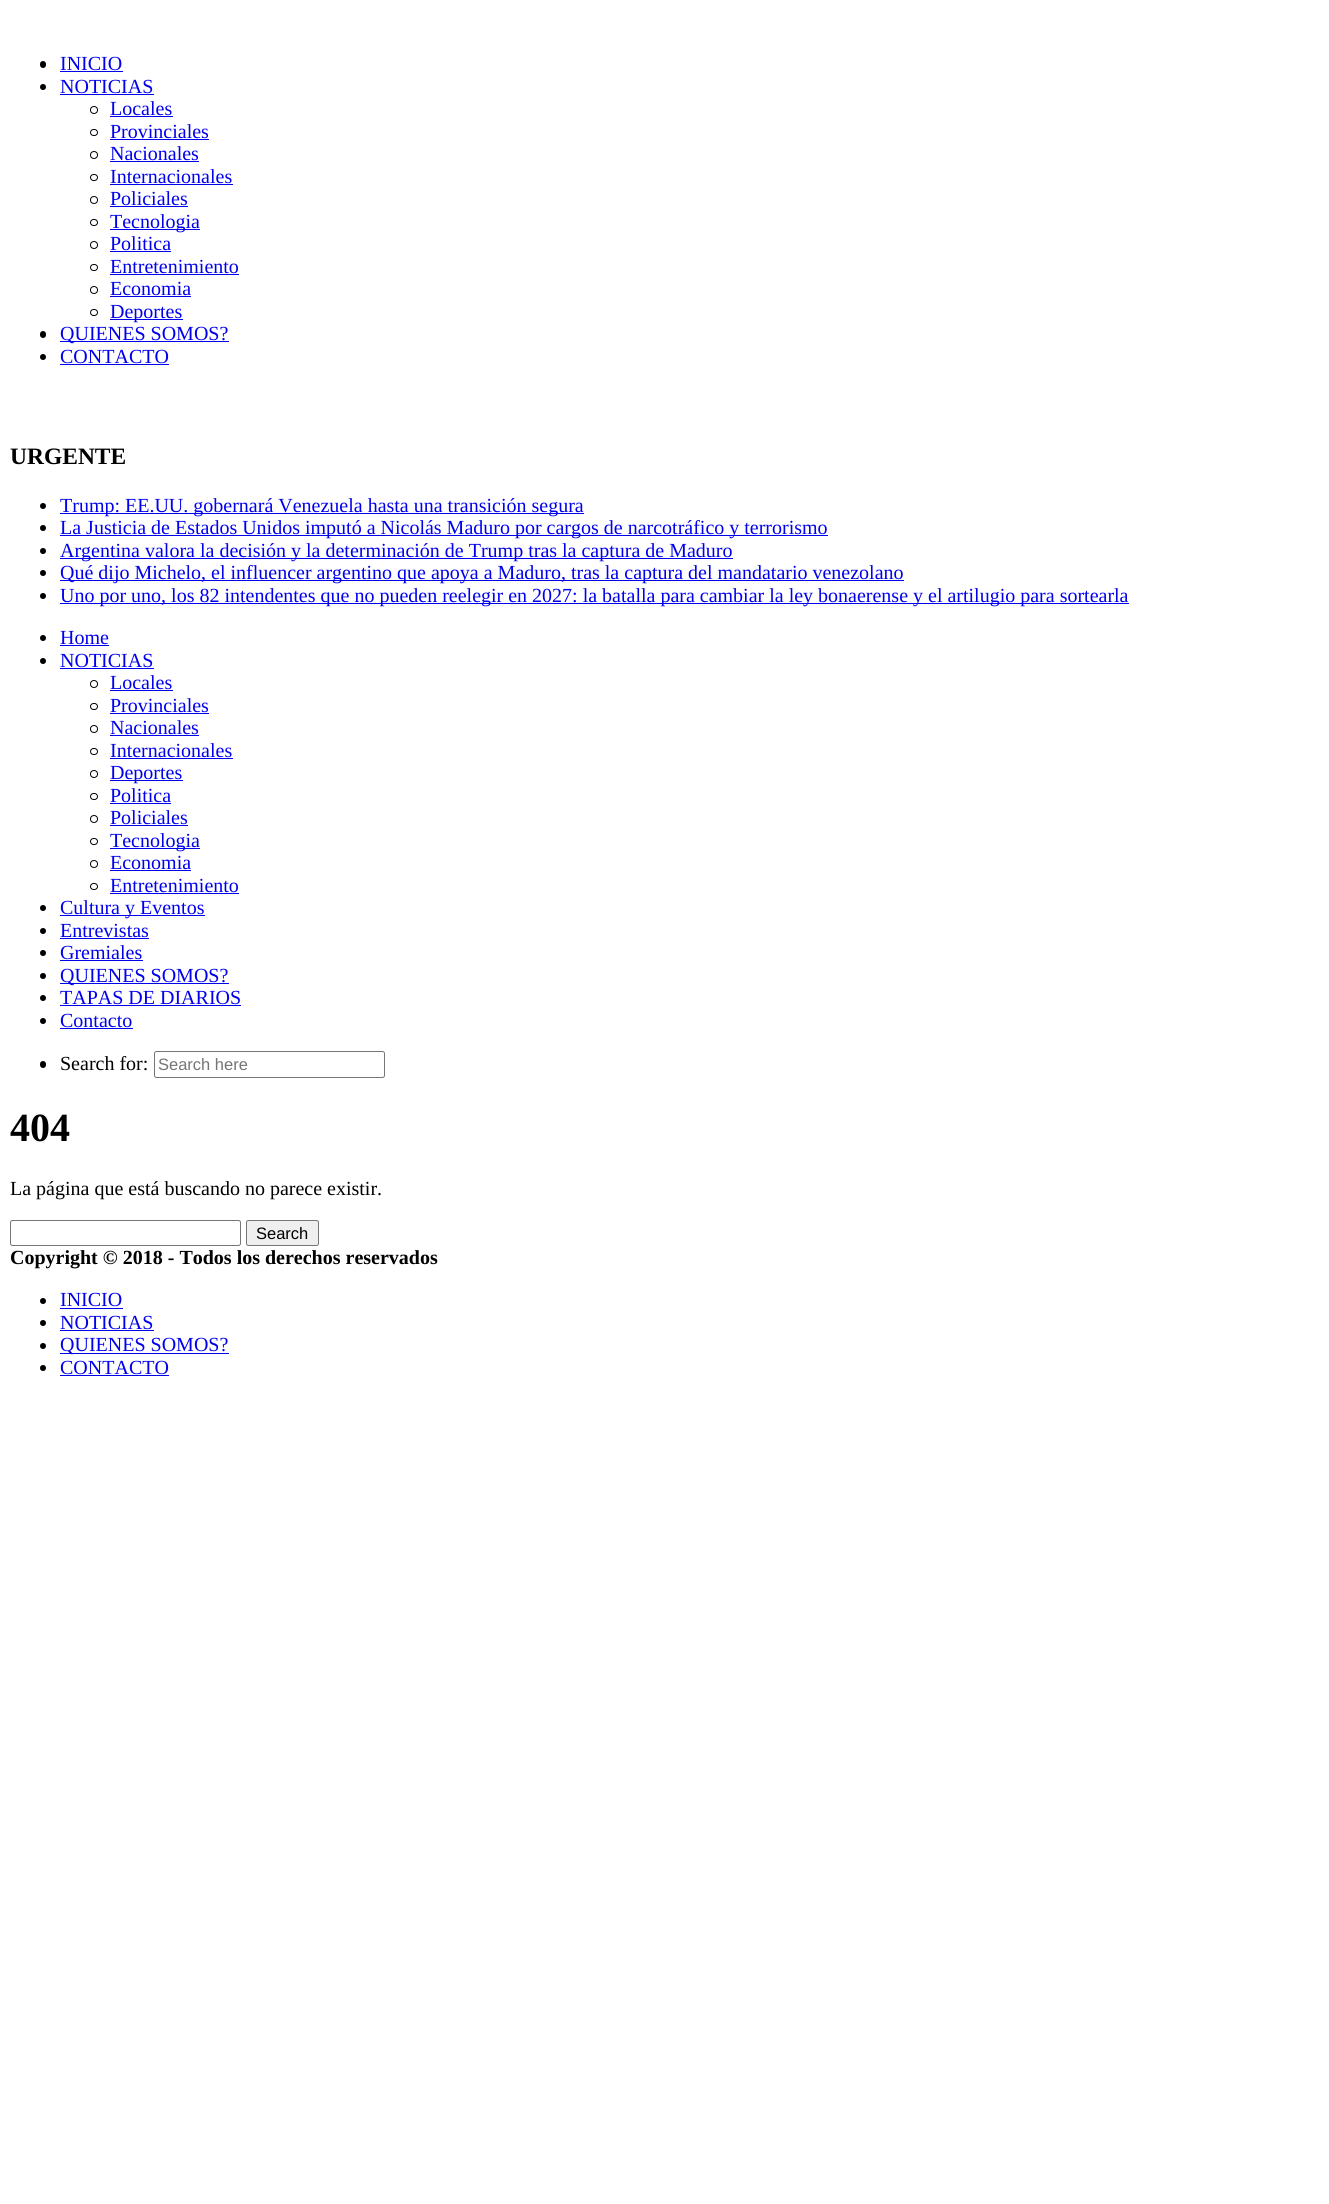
import math
import cairo

surface = cairo.ImageSurface(cairo.FORMAT_RGB24, 1329, 2204)
c = cairo.Context(surface)
options = cairo.FontOptions()
options.set_hint_metrics(cairo.HINT_METRICS_OFF)
options.set_hint_style(cairo.HINT_STYLE_NONE)
c.set_font_options(options)
c.set_miter_limit(4)
def C(code):
 c.set_source_rgb(*(v / 255 for v in bytes.fromhex(code[-6:])))
def F(family, size, italic, bold):
 c.select_font_face(family, cairo.FONT_SLANT_ITALIC if italic else cairo.FONT_SLANT_NORMAL, cairo.FONT_WEIGHT_BOLD if bold else cairo.FONT_WEIGHT_NORMAL)
 c.set_font_size(size)
def T(x, y, s):
 c.move_to(x, y)
 c.show_text(s)
def R(x, y, w, h):
 c.rectangle(x, y, w, h)
 c.fill()
def Q(x, y, w, h, r):
 c.new_sub_path()
 for i, (u, v) in enumerate([(x + w - r, y + h - r), (x + r, y + h - r), (x + r, y + r), (x + w - r, y + r)]):
  c.arc(u, v, r, i * math.pi / 2, (i + 1) * math.pi / 2)
 c.close_path()
C('ffffff')
c.paint()
C('000000')
Q(40,61,6,7,3)
c.fill()
F('Liberation Serif',20,0,0)
C('0000ee')
T(60,70,'INICIO')
R(60,71,63,1)
C('000000')
c.new_path()
c.arc(43,87,3,0,2 * math.pi)
c.fill()
C('0000ee')
T(60,93,'NOTICIAS')
R(60,94,94,1)
c.new_path()
c.arc(94,110,3.5,0,2 * math.pi)
C('000000')
c.set_line_width(1)
c.stroke()
C('0000ee')
T(110,115,'Locales')
R(110,116,63,1)
Q(90.5,129.5,7,6,3)
C('000000')
c.stroke()
C('0000ee')
T(110,138,'Provinciales')
R(110,139,99,1)
c.new_path()
c.arc(94,155,3.5,0,2 * math.pi)
C('000000')
c.stroke()
C('0000ee')
T(110,160,'Nacionales')
R(110,161,89,1)
Q(90.5,174.5,7,6,3)
C('000000')
c.stroke()
C('0000ee')
T(110,183,'Internacionales')
R(110,184,123,1)
c.new_path()
c.arc(94,200,3.5,0,2 * math.pi)
C('000000')
c.stroke()
C('0000ee')
T(110,205,'Policiales')
R(110,206,78,1)
Q(90.5,219.5,7,6,3)
C('000000')
c.stroke()
C('0000ee')
R(110,229,90,1)
T(110,228,'Tecnologia')
c.new_path()
c.arc(94,245,3.5,0,2 * math.pi)
C('000000')
c.stroke()
C('0000ee')
T(110,250,'Politica')
R(110,251,61,1)
Q(90.5,264.5,7,6,3)
C('000000')
c.stroke()
C('0000ee')
T(110,273,'Entretenimiento')
R(110,274,129,1)
c.new_path()
c.arc(94,290,3.5,0,2 * math.pi)
C('000000')
c.stroke()
C('0000ee')
T(110,295,'Economia')
R(110,296,81,1)
Q(90.5,309.5,7,6,3)
C('000000')
c.stroke()
C('0000ee')
R(110,319,73,1)
T(110,318,'Deportes')
C('000000')
Q(40,331,6,7,3)
c.fill()
C('0000ee')
R(60,341,169,1)
T(60,340,'QUIENES SOMOS?')
C('000000')
c.new_path()
c.arc(43,357,3,0,2 * math.pi)
c.fill()
C('0000ee')
T(60,363,'CONTACTO')
R(60,364,109,1)
F('Liberation Serif',23.5,0,1)
C('000000')
T(10,464,'URGENTE')
c.new_path()
c.arc(43,506,3,0,2 * math.pi)
c.fill()
C('0000ee')
R(60,513,524,1)
F('Liberation Serif',20,0,0)
T(60,512,'Trump: EE.UU. gobernará Venezuela hasta una transición segura')
C('000000')
c.new_path()
c.arc(43,528,3,0,2 * math.pi)
c.fill()
C('0000ee')
R(60,535,768,1)
T(60,534,'La Justicia de Estados Unidos imputó a Nicolás Maduro por cargos de narcotráfico y terrorismo')
C('000000')
c.new_path()
c.arc(43,551,3,0,2 * math.pi)
c.fill()
C('0000ee')
R(60,558,673,1)
T(60,557,'Argentina valora la decisión y la determinación de Trump tras la captura de Maduro')
C('000000')
c.new_path()
c.arc(43,573,3,0,2 * math.pi)
c.fill()
C('0000ee')
R(60,580,844,1)
T(60,579,'Qué dijo Michelo, el influencer argentino que apoya a Maduro, tras la captura del mandatario venezolano')
C('000000')
c.new_path()
c.arc(43,596,3,0,2 * math.pi)
c.fill()
C('0000ee')
R(60,603,1069,1)
T(60,602,'Uno por uno, los 82 intendentes que no pueden reelegir en 2027: la batalla para cambiar la ley bonaerense y el artilugio para sortearla')
C('000000')
c.new_path()
c.arc(43,638,3,0,2 * math.pi)
c.fill()
C('0000ee')
T(60,644,'Home')
R(60,645,49,1)
C('000000')
c.new_path()
c.arc(43,661,3,0,2 * math.pi)
c.fill()
C('0000ee')
T(60,667,'NOTICIAS')
R(60,668,94,1)
c.new_path()
c.arc(94,684,3.5,0,2 * math.pi)
C('000000')
c.stroke()
C('0000ee')
T(110,689,'Locales')
R(110,690,63,1)
Q(90.5,703.5,7,6,3)
C('000000')
c.stroke()
C('0000ee')
T(110,712,'Provinciales')
R(110,713,99,1)
c.new_path()
c.arc(94,729,3.5,0,2 * math.pi)
C('000000')
c.stroke()
C('0000ee')
T(110,734,'Nacionales')
R(110,735,89,1)
Q(90.5,748.5,7,6,3)
C('000000')
c.stroke()
C('0000ee')
T(110,757,'Internacionales')
R(110,758,123,1)
c.new_path()
c.arc(94,774,3.5,0,2 * math.pi)
C('000000')
c.stroke()
C('0000ee')
R(110,780,73,1)
T(110,779,'Deportes')
Q(90.5,793.5,7,6,3)
C('000000')
c.stroke()
C('0000ee')
T(110,802,'Politica')
R(110,803,61,1)
c.new_path()
c.arc(94,819,3.5,0,2 * math.pi)
C('000000')
c.stroke()
C('0000ee')
T(110,824,'Policiales')
R(110,825,78,1)
Q(90.5,838.5,7,6,3)
C('000000')
c.stroke()
C('0000ee')
R(110,848,90,1)
T(110,847,'Tecnologia')
c.new_path()
c.arc(94,864,3.5,0,2 * math.pi)
C('000000')
c.stroke()
C('0000ee')
T(110,869,'Economia')
R(110,870,81,1)
Q(90.5,883.5,7,6,3)
C('000000')
c.stroke()
C('0000ee')
T(110,892,'Entretenimiento')
R(110,893,129,1)
C('000000')
c.new_path()
c.arc(43,908,3,0,2 * math.pi)
c.fill()
C('0000ee')
R(60,915,145,1)
T(60,914,'Cultura y Eventos')
C('000000')
c.new_path()
c.arc(43,931,3,0,2 * math.pi)
c.fill()
C('0000ee')
T(60,937,'Entrevistas')
R(60,938,89,1)
C('000000')
c.new_path()
c.arc(43,953,3,0,2 * math.pi)
c.fill()
C('0000ee')
T(60,959,'Gremiales')
R(60,960,83,1)
C('000000')
c.new_path()
c.arc(43,976,3,0,2 * math.pi)
c.fill()
C('0000ee')
R(60,983,169,1)
T(60,982,'QUIENES SOMOS?')
C('000000')
c.new_path()
c.arc(43,998,3,0,2 * math.pi)
c.fill()
C('0000ee')
T(60,1004,'TAPAS DE DIARIOS')
R(60,1005,181,1)
C('000000')
c.new_path()
c.arc(43,1021,3,0,2 * math.pi)
c.fill()
C('0000ee')
T(60,1027,'Contacto')
R(60,1028,73,1)
C('000000')
Q(40,1061,6,7,3)
c.fill()
T(60,1070,'Search for:')
Q(154.5,1051.5,230,26,2)
C('767676')
c.stroke()
F('Liberation Sans',16.5,0,0)
C('757575')
T(158,1070,'Search here')
F('Liberation Serif',40,0,1)
C('000000')
T(10,1141,'404')
F('Liberation Serif',20,0,0)
T(10,1195,'La página que está buscando no parece existir.')
Q(10.5,1220.5,230,25,2)
C('767676')
c.stroke()
C('efefef')
Q(246.5,1220.5,72,25,2)
c.fill_preserve()
C('767676')
c.stroke()
F('Liberation Sans',16.5,0,0)
C('000000')
T(256,1239,'Search')
F('Liberation Serif',20,0,1)
T(10,1264,'Copyright © 2018 - Todos los derechos reservados')
c.new_path()
c.arc(43,1301,3,0,2 * math.pi)
c.fill()
F('Liberation Serif',20,0,0)
C('0000ee')
T(60,1306,'INICIO')
R(60,1308,63,1)
C('000000')
c.new_path()
c.arc(43,1323,3,0,2 * math.pi)
c.fill()
C('0000ee')
T(60,1329,'NOTICIAS')
R(60,1330,94,1)
C('000000')
c.new_path()
c.arc(43,1346,3,0,2 * math.pi)
c.fill()
C('0000ee')
R(60,1353,169,1)
T(60,1351,'QUIENES SOMOS?')
C('000000')
c.new_path()
c.arc(43,1368,3,0,2 * math.pi)
c.fill()
C('0000ee')
T(60,1374,'CONTACTO')
R(60,1375,109,1)
surface.write_to_png('o.png')
